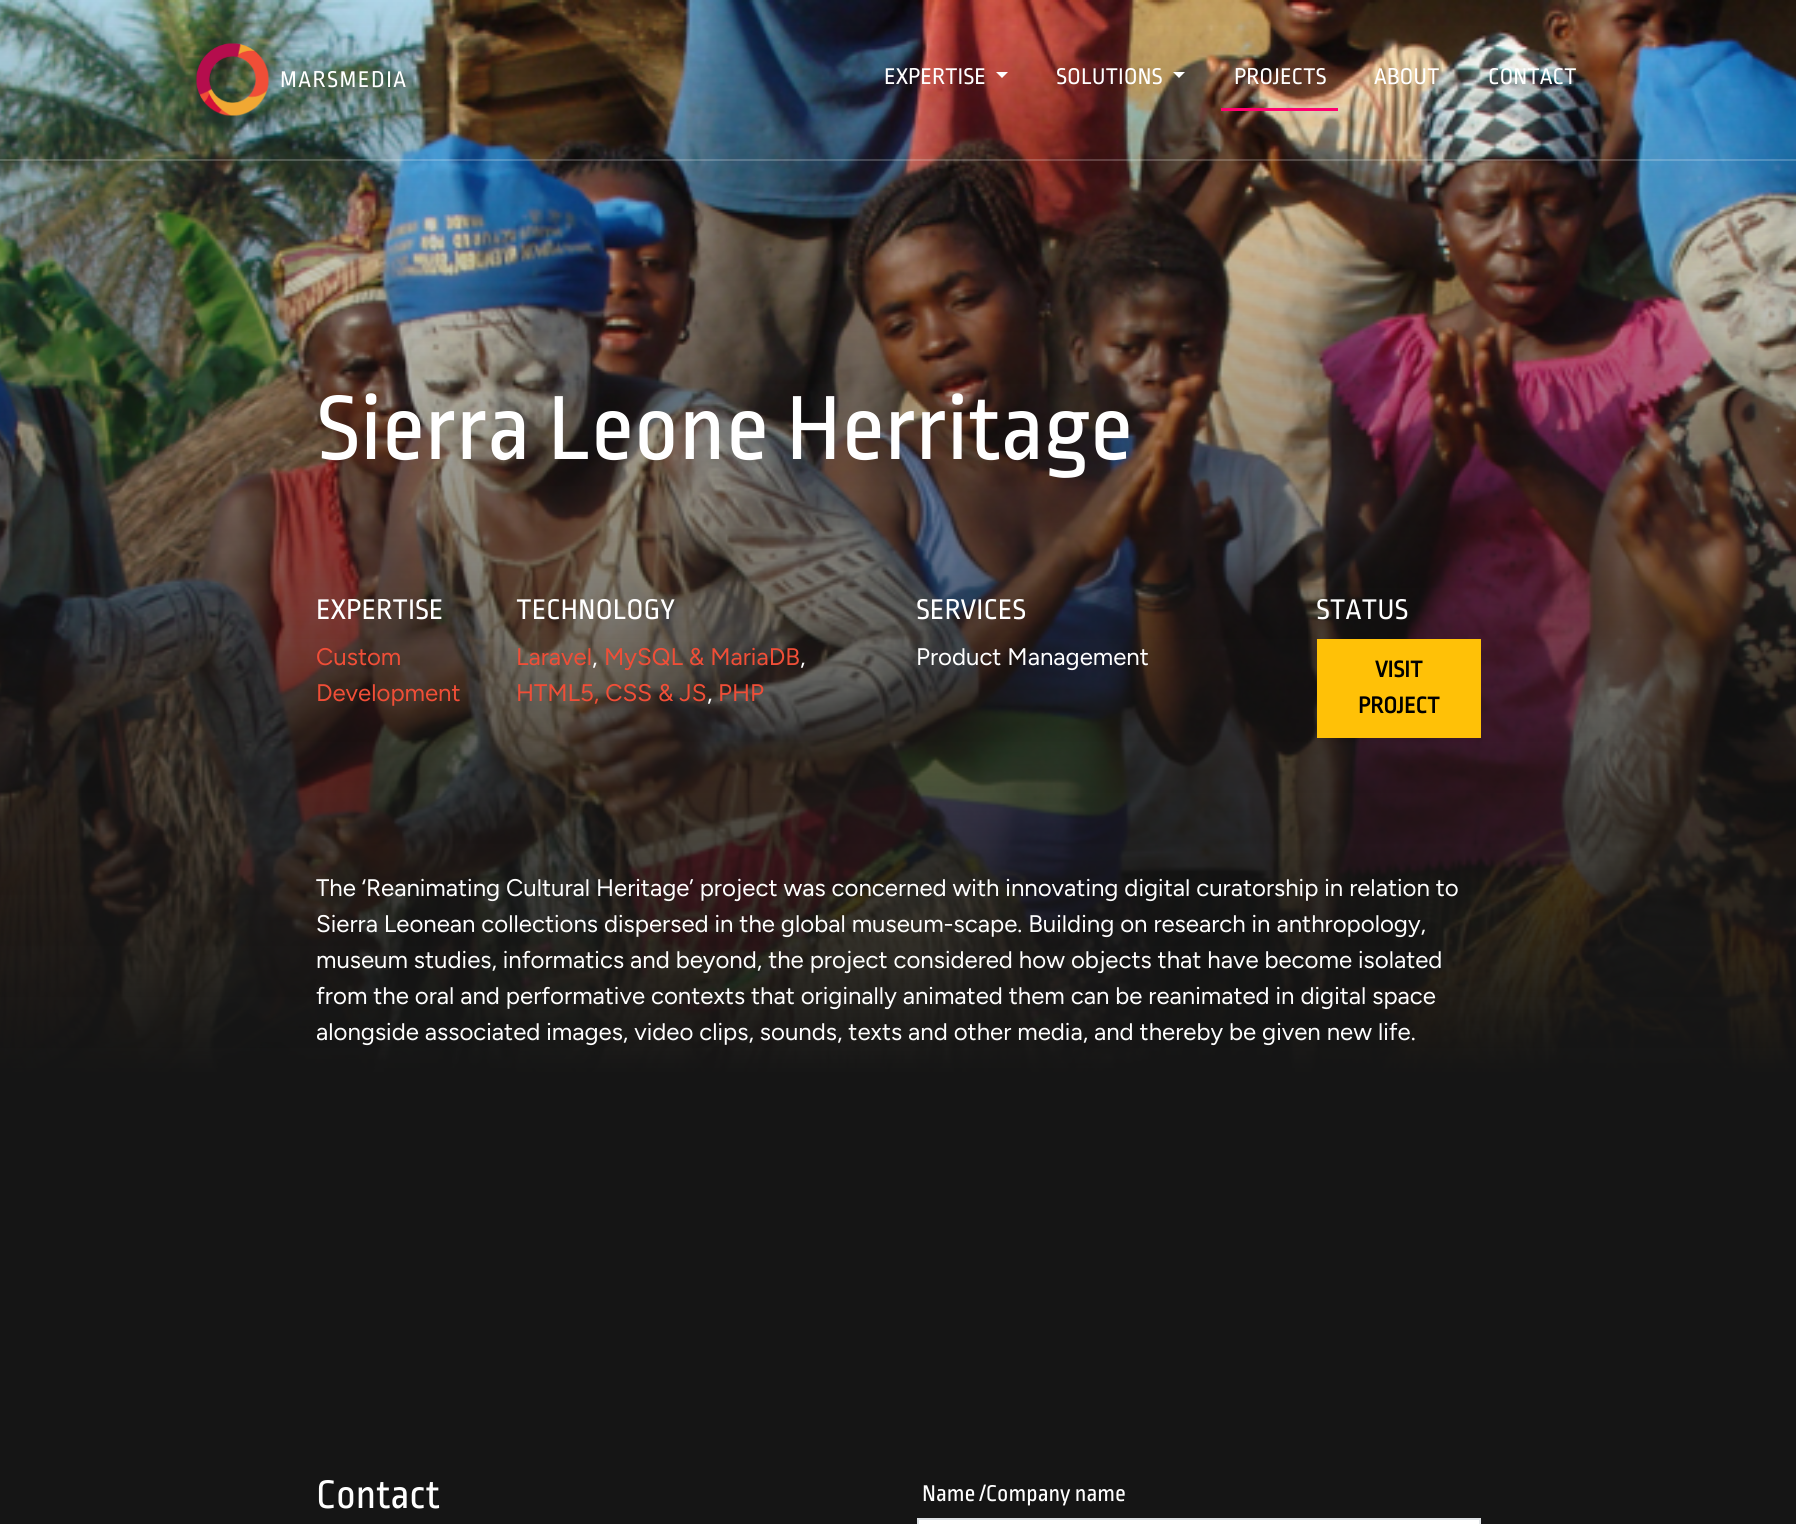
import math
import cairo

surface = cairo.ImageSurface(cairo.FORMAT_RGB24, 1796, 1524)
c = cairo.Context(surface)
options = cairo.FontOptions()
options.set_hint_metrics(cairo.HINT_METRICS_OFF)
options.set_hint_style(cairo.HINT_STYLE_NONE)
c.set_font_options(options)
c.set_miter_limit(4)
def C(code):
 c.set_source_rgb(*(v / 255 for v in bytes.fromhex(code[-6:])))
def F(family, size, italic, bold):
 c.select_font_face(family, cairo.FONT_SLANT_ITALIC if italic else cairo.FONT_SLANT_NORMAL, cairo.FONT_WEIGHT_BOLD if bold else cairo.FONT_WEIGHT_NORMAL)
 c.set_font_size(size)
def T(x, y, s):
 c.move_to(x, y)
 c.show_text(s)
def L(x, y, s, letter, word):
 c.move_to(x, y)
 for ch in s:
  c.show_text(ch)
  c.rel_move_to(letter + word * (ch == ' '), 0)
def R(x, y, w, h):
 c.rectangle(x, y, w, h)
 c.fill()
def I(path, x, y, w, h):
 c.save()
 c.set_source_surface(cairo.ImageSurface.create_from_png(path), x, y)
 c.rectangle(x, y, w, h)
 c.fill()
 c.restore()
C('151515')
c.paint()
I('2.png',0,0,1796,1074)
c.set_source_rgba(1,1,1,0.2)
R(0,159,1796,2)
I('1.png',196,43,73,73)
F('Ropa Sans',24,0,0)
C('ffffff')
L(280,87,'MARSMEDIA',1.5,0)
T(884,84,'EXPERTISE')
c.new_path()
c.move_to(996,72)
c.line_to(1008,72)
c.line_to(1002,78)
c.close_path()
c.fill()
T(1056,84,'SOLUTIONS')
c.new_path()
c.move_to(1173,72)
c.line_to(1185,72)
c.line_to(1179,78)
c.close_path()
c.fill()
C('ff006e')
R(1221,108,117,3)
C('ffffff')
T(1234,84,'PROJECTS')
T(1374,84,'ABOUT')
T(1488,84,'CONTACT')
F('Ropa Sans',96,0,0)
T(316,459,'Sierra Leone Herritage')
F('Ropa Sans',30,0,0)
T(316,619,'EXPERTISE')
F('Figtree',24,0,0)
C('f04e37')
T(316,665,'Custom')
T(316,701,'Development')
F('Ropa Sans',30,0,0)
C('ffffff')
T(516,619,'TECHNOLOGY')
F('Figtree',24,0,0)
C('f04e37')
T(516,665,'Laravel')
C('ffffff')
T(592,665,',')
C('f04e37')
T(604,665,'MySQL & MariaDB')
C('ffffff')
T(800,665,',')
C('f04e37')
T(516,701,'HTML5, CSS & JS')
C('ffffff')
T(707,701,',')
C('f04e37')
T(718,701,'PHP')
F('Ropa Sans',30,0,0)
C('ffffff')
T(916,619,'SERVICES')
F('Figtree',24,0,0)
T(916,665,'Product Management')
F('Ropa Sans',30,0,0)
T(1316,619,'STATUS')
C('ffc107')
R(1317,639,164,99)
F('Ropa Sans',24,0,1)
C('000000')
T(1375,677,'VISIT')
T(1358,713,'PROJECT')
F('Figtree',24,0,0)
C('ffffff')
T(316,896,'The ‘Reanimating Cultural Heritage’ project was concerned with innovating digital curatorship in relation to')
T(316,932,'Sierra Leonean collections dispersed in the global museum-scape. Building on research in anthropology,')
T(316,968,'museum studies, informatics and beyond, the project considered how objects that have become isolated')
T(316,1004,'from the oral and performative contexts that originally animated them can be reanimated in digital space')
T(316,1040,'alongside associated images, video clips, sounds, texts and other media, and thereby be given new life.')
F('Ropa Sans',42,0,0)
T(316,1508,'Contact')
F('Ropa Sans',24,0,0)
T(922,1501,'Name /Company name')
c.rectangle(918,1519,562,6)
c.fill_preserve()
C('dee2e6')
c.stroke()
surface.write_to_png('o.png')
